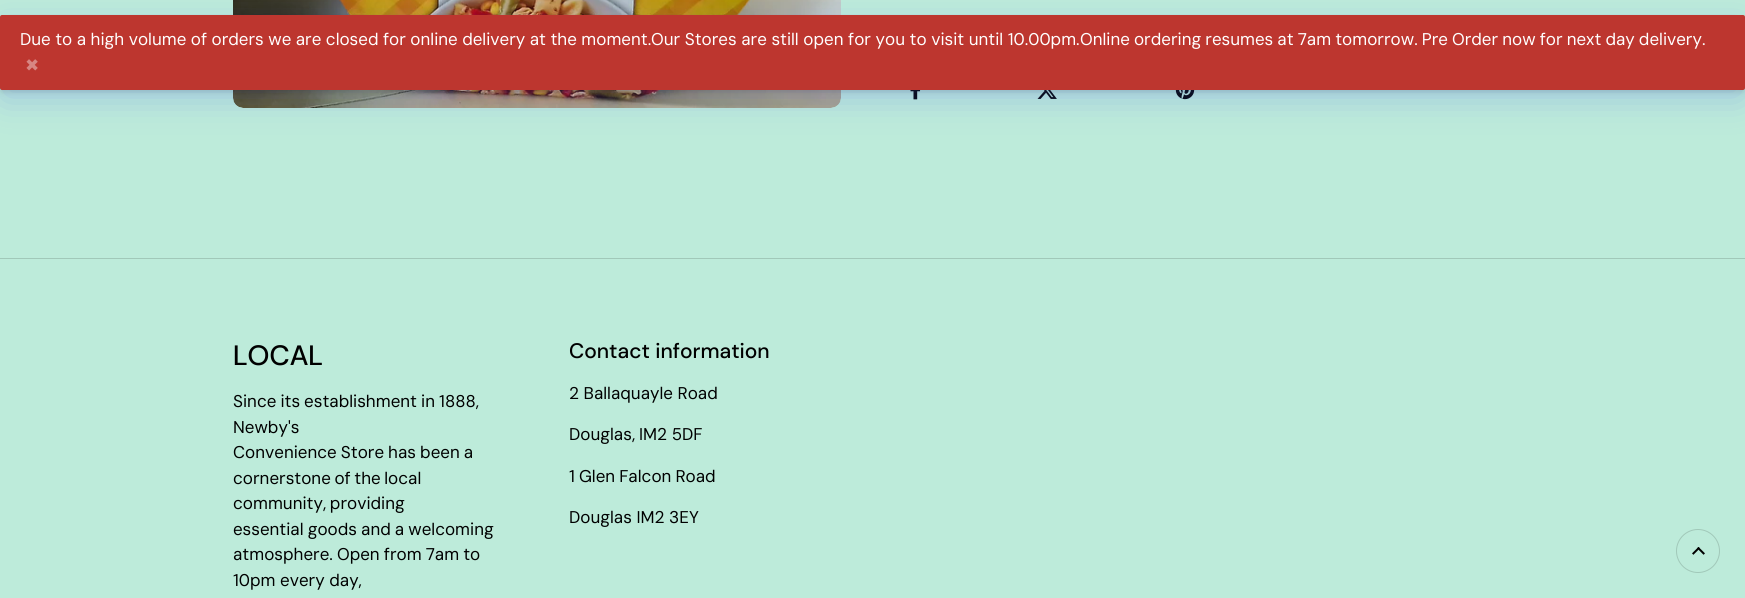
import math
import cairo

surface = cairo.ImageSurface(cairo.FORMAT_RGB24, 1745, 598)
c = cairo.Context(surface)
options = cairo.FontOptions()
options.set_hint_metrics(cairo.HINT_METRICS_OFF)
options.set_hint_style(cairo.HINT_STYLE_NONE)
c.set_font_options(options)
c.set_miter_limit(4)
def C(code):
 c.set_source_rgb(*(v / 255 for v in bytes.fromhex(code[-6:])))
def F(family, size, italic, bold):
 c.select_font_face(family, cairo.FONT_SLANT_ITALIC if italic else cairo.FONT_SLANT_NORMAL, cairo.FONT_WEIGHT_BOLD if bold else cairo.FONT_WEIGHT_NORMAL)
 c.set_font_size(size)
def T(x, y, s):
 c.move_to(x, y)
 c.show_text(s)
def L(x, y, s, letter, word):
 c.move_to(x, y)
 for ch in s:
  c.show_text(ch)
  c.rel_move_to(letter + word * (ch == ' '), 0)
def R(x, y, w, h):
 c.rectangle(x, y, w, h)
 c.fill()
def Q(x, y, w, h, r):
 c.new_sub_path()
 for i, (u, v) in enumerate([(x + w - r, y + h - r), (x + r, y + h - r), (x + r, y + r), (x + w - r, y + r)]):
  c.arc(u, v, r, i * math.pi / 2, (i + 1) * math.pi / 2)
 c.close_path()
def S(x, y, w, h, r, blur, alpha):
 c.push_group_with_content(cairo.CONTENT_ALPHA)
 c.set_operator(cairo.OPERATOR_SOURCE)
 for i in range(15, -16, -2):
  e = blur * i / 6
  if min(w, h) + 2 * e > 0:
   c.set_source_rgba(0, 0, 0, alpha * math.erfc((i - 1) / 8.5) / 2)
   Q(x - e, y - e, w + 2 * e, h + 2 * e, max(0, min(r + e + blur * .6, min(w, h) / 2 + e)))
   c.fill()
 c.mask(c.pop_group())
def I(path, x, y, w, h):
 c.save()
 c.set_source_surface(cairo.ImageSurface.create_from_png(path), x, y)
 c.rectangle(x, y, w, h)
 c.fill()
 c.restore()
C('bdebda')
c.paint()
I('1.png',233,0,608,108)
I('2.png',910,90,11,10)
I('3.png',1037,90,20,9)
I('4.png',1175,90,20,10)
C('4d60e8')
S(4,29,1737,67,0,18,.3)
C('000000')
S(1,19,1743,73,1,3,.12)
C('bd362f')
Q(0,15,1745,75,2)
c.fill()
F('DM Sans',17,0,0)
C('ffffff')
L(20,45,'Due to a high volume of orders we are closed for online delivery at the moment.',0,-.1)
T(651,45,'Our Stores are still open for you to visit until 10.00pm.')
L(1080,45,'Online ordering resumes at 7am tomorrow. Pre Order now for next day delivery.',0,-.5)
F('DejaVu Sans',17,0,0)
C('d78682')
T(25,71,'✖')
C('a1c8b9')
R(0,258,1745,1)
F('DM Sans Medium',28,0,0)
C('000000')
T(233,365,'LOCAL')
F('DM Sans',17,0,0)
L(233,407,'Since its establishment in 1888,',0,-.5)
T(233,433,'Newby\'s')
L(233,458,'Convenience Store has been a',0,-.5)
L(233,484,'cornerstone of the local',0,-1)
L(233,509,'community, providing',0,-1)
L(233,535,'essential goods and a welcoming',0,-.5)
L(233,560,'atmosphere. Open from 7am to',0,-.5)
T(233,586,'10pm every day,')
F('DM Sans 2 Medium',21,0,0)
T(569,358,'Contact information')
F('DM Sans',17,0,0)
T(569,399,'2 Ballaquayle Road')
T(569,440,'Douglas,')
T(639,440,'IM2 5DF')
L(569,482,'1 Glen Falcon Road',0,-.5)
T(569,523,'Douglas IM2 3EY')
c.new_path()
c.arc(1698,551,21.5,0,2 * math.pi)
C('a1c8b9')
c.set_line_width(1)
c.stroke()
I('5.png',1692,547,13,8)
surface.write_to_png('o.png')
